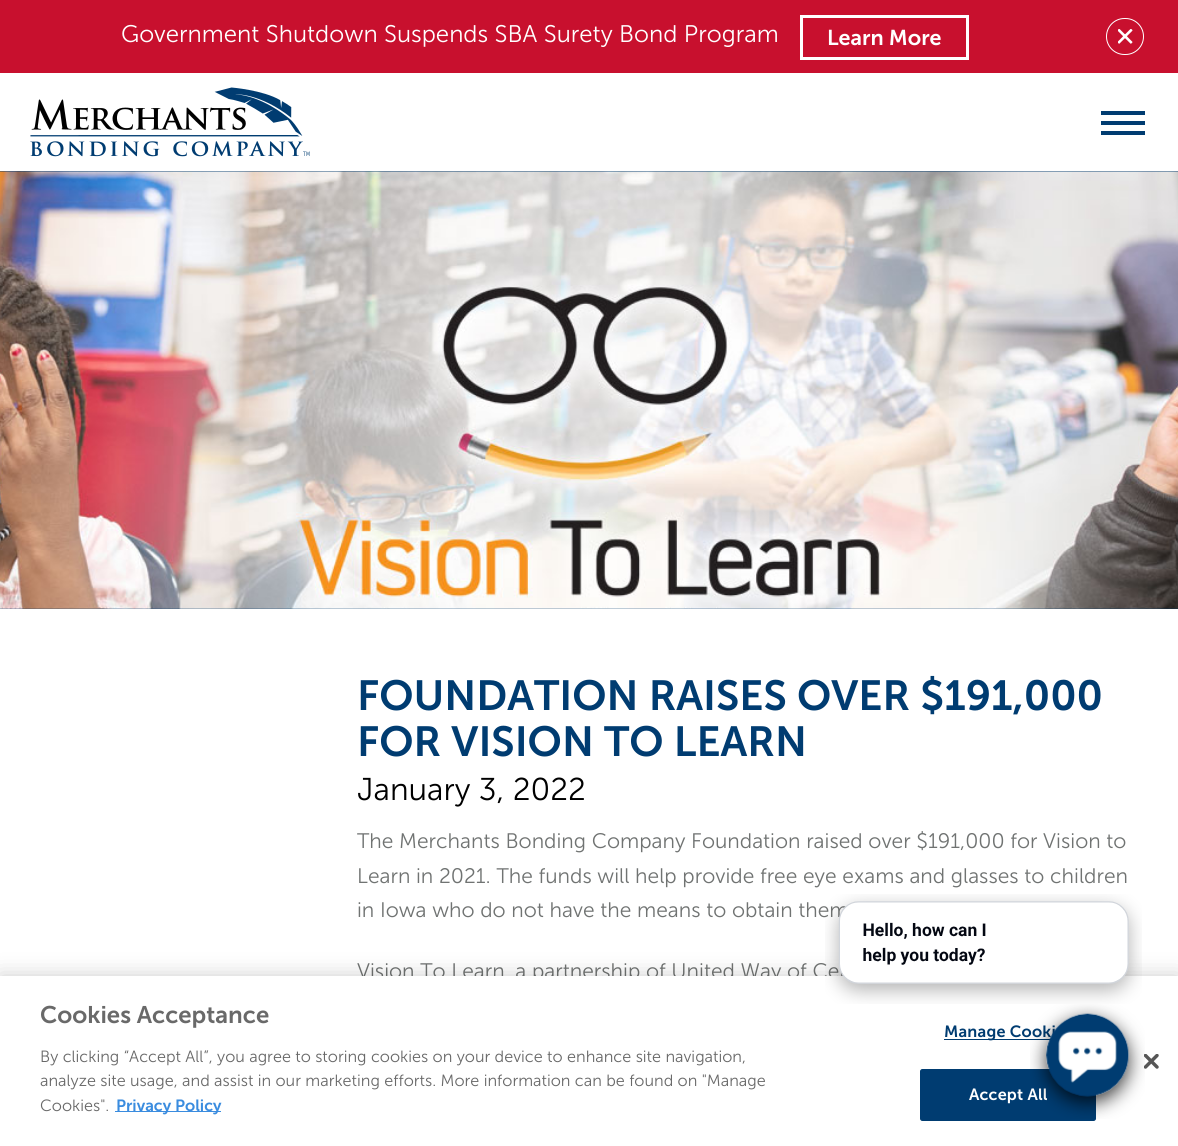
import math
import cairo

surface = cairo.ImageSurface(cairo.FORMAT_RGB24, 1178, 1146)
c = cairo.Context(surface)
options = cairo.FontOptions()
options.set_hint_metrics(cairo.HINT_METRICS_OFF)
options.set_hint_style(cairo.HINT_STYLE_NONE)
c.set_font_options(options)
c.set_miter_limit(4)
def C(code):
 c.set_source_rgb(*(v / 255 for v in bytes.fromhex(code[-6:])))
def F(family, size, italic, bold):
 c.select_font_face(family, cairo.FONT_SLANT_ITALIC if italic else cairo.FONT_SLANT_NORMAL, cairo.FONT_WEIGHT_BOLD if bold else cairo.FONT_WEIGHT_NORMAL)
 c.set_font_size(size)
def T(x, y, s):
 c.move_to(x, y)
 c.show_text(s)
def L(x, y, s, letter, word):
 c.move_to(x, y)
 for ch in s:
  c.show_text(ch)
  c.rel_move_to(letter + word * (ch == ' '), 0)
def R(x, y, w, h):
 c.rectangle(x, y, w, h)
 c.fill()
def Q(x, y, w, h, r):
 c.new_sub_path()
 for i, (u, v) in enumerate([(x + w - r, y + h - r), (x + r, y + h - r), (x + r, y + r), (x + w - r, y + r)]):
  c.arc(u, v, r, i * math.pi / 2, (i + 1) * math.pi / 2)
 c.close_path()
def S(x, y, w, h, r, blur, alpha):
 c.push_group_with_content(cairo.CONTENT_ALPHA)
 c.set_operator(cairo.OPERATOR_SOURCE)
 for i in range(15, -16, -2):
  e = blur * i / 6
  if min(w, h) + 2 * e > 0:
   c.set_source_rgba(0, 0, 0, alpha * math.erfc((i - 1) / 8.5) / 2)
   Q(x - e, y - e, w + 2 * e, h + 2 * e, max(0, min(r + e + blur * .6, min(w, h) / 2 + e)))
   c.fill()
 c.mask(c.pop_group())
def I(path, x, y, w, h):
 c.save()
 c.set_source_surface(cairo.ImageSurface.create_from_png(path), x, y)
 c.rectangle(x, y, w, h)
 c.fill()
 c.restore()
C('ffffff')
c.paint()
C('c8102e')
R(0,0,1178,73)
F('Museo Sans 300 Light',24,0,0)
C('ffffff')
T(121,42,'Government Shutdown Suspends SBA Surety Bond Program')
c.rectangle(801.5,16.5,166,42)
c.set_line_width(3)
c.stroke()
F('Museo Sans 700 SemiBold',21.5,0,0)
T(827,45,'Learn More')
Q(1106.5,18.5,37,36,18)
c.set_line_width(1)
c.stroke()
I('1.png',1118,29,15,15)
I('2.png',30,87,280,70)
C('003c71')
R(1101,111,44,4)
R(1101,121,44,4)
R(1101,131,44,4)
R(0,171,1178,438)
I('3.png',0,171,1178,438)
F('Museo Sans 700 SemiBold',42,0,0)
T(357,710,'FOUNDATION RAISES OVER $191,000')
T(357,756,'FOR VISION TO LEARN')
F('Museo Sans 300 Light',31.5,0,0)
C('000000')
T(357,800,'January 3, 2022')
F('Museo Sans 300 Light',21,0,0)
C('707372')
T(357,848,'The Merchants Bonding Company Foundation raised over $191,000 for Vision to')
T(357,883,'Learn in 2021. The funds will help provide free eye exams and glasses to children')
T(357,917,'in Iowa who do not have the means to obtain them')
T(357,978,'Vision To Learn, a partnership of United Way of Cen')
C('000000')
S(0,976,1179,170,0,11,.2)
C('ffffff')
R(0,976,1178,170)
I('4.png',825,894,317,110)
C('003c71')
R(944,1039,107,1)
F('Museo Sans 700 SemiBold',16.25,0,0)
L(944,1037,'Manage Cooki',.2,0)
Q(920.5,1069.5,175,51,2)
c.fill_preserve()
c.stroke()
C('ffffff')
L(969,1100,'Accept All',.2,0)
I('6.png',1144,1054,15,15)
I('5.png',1030,1004,115,115)
F('Museo Sans 700 SemiBold',24,0,0)
C('696969')
T(40,1023,'Cookies Acceptance')
F('Museo Sans 300 Light',16.25,0,0)
T(40,1062,'By clicking “Accept All”, you agree to storing cookies on your device to enhance site navigation,')
T(40,1086,'analyze site usage, and assist in our marketing efforts. More information can be found on "Manage')
T(40,1111,'Cookies".')
C('3a8cdf')
R(115,1111,106,1)
F('Museo Sans 700 SemiBold',16.25,0,0)
T(116,1111,'Privacy Policy')
surface.write_to_png('o.png')
